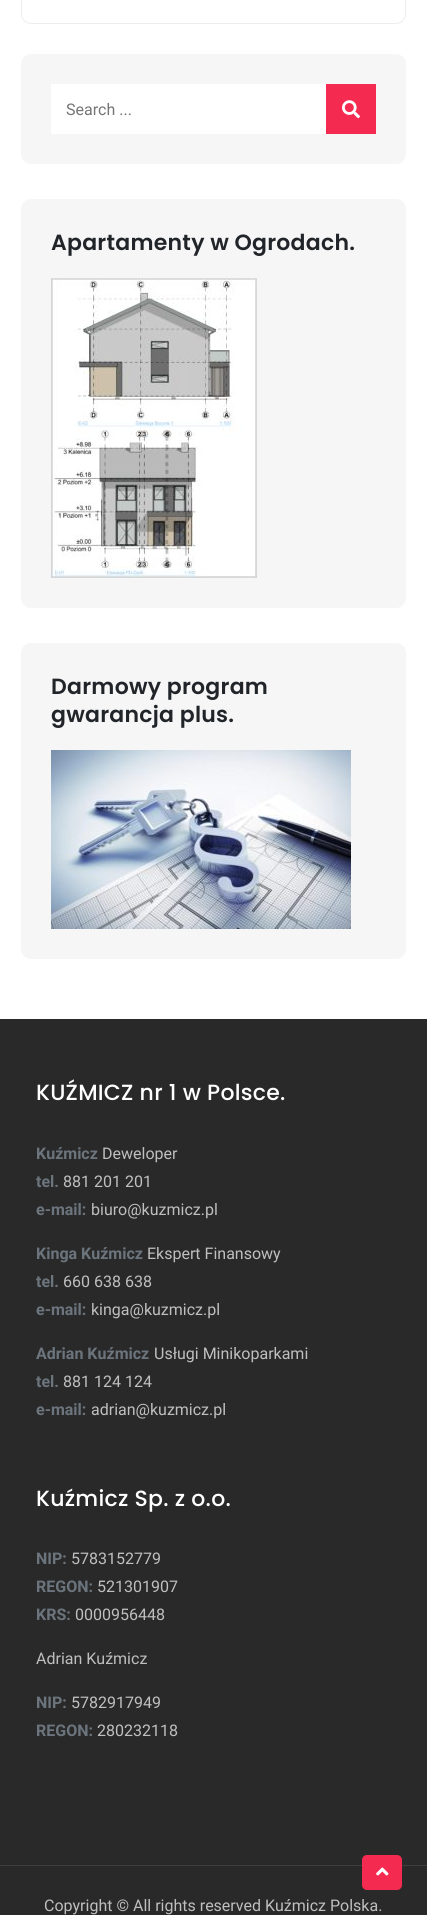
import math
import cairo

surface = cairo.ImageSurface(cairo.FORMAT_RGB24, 427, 1915)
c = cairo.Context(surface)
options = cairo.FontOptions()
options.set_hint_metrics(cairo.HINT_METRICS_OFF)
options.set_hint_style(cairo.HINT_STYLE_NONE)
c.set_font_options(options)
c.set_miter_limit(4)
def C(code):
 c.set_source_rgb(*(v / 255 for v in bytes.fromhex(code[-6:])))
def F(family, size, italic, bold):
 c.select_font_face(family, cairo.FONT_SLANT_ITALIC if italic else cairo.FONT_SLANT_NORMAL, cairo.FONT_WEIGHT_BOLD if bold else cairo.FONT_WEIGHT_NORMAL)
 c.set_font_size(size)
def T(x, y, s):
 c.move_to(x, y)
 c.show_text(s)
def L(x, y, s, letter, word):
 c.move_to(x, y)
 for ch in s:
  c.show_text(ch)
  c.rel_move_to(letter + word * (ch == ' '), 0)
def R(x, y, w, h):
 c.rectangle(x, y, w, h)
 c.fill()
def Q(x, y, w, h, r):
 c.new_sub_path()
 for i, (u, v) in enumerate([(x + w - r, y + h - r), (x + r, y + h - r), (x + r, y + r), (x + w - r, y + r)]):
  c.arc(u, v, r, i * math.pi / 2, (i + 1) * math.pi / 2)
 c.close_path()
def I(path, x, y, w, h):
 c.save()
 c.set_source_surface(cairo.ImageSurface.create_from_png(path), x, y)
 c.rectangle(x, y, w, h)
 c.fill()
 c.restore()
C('ffffff')
c.paint()
Q(21.5,-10.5,384,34,9.5)
C('ededed')
c.set_line_width(1)
c.stroke()
C('f6f6f6')
Q(21,54,385,110,10)
c.fill()
C('ffffff')
R(51,84,275,50)
F('Roboto',16,0,0)
C('757575')
T(66,115,'Search ...')
C('f52a50')
R(326,84,50,50)
I('1.png',342,100,18,19)
C('f6f6f6')
Q(21,199,385,409,10)
c.fill()
F('Poppins SemiBold',22,0,0)
C('212529')
L(51,250,'Apartamenty w Ogrodach.',.25,0)
I('2.png',51,278,206,300)
C('f6f6f6')
Q(21,643,385,316,10)
c.fill()
C('212529')
L(51,694,'Darmowy program',.25,0)
L(51,722,'gwarancja plus.',.25,0)
I('3.png',51,750,300,179)
C('292929')
R(0,1019,427,896)
C('3e3e3e')
R(0,1865,427,1)
F('Poppins Medium',22,0,0)
C('ffffff')
L(36,1100,'KUŹMICZ nr 1 w Polsce.',.25,0)
F('Roboto',16,0,1)
C('6c757d')
T(36,1159,'Kuźmicz')
F('Roboto',16,0,0)
C('bfbfbf')
T(102,1159,'Deweloper')
F('Roboto',16,0,1)
C('6c757d')
T(36,1187,'tel.')
F('Roboto',16,0,0)
C('bfbfbf')
T(63,1187,'881 201 201')
F('Roboto',16,0,1)
C('6c757d')
T(36,1215,'e-mail:')
F('Roboto',16,0,0)
C('bfbfbf')
T(91,1215,'biuro@kuzmicz.pl')
F('Roboto',16,0,1)
C('6c757d')
T(36,1259,'Kinga Kuźmicz')
F('Roboto',16,0,0)
C('bfbfbf')
T(147,1259,'Ekspert Finansowy')
F('Roboto',16,0,1)
C('6c757d')
T(36,1287,'tel.')
F('Roboto',16,0,0)
C('bfbfbf')
T(63,1287,'660 638 638')
F('Roboto',16,0,1)
C('6c757d')
T(36,1315,'e-mail:')
F('Roboto',16,0,0)
C('bfbfbf')
T(91,1315,'kinga@kuzmicz.pl')
F('Roboto',16,0,1)
C('6c757d')
T(36,1359,'Adrian Kuźmicz')
F('Roboto',16,0,0)
C('bfbfbf')
T(154,1359,'Usługi Minikoparkami')
F('Roboto',16,0,1)
C('6c757d')
T(36,1387,'tel.')
F('Roboto',16,0,0)
C('bfbfbf')
T(63,1387,'881 124 124')
F('Roboto',16,0,1)
C('6c757d')
T(36,1415,'e-mail:')
F('Roboto',16,0,0)
C('bfbfbf')
T(91,1415,'adrian@kuzmicz.pl')
F('Poppins Medium',22,0,0)
C('ffffff')
L(36,1506,'Kuźmicz Sp. z o.o.',.25,0)
F('Roboto',16,0,1)
C('6c757d')
T(36,1564,'NIP:')
F('Roboto',16,0,0)
C('bfbfbf')
T(71,1564,'5783152779')
F('Roboto',16,0,1)
C('6c757d')
T(36,1592,'REGON:')
F('Roboto',16,0,0)
C('bfbfbf')
T(97,1592,'521301907')
F('Roboto',16,0,1)
C('6c757d')
T(36,1620,'KRS:')
F('Roboto',16,0,0)
C('bfbfbf')
T(75,1620,'0000956448')
T(36,1664,'Adrian Kuźmicz')
F('Roboto',16,0,1)
C('6c757d')
T(36,1708,'NIP:')
F('Roboto',16,0,0)
C('bfbfbf')
T(71,1708,'5782917949')
F('Roboto',16,0,1)
C('6c757d')
T(36,1736,'REGON:')
F('Roboto',16,0,0)
C('bfbfbf')
T(97,1736,'280232118')
T(44,1911,'Copyright © All rights reserved Kuźmicz Polska.')
C('f52a50')
Q(362,1855,40,35,5)
c.fill()
I('4.png',376,1867,13,9)
surface.write_to_png('o.png')
